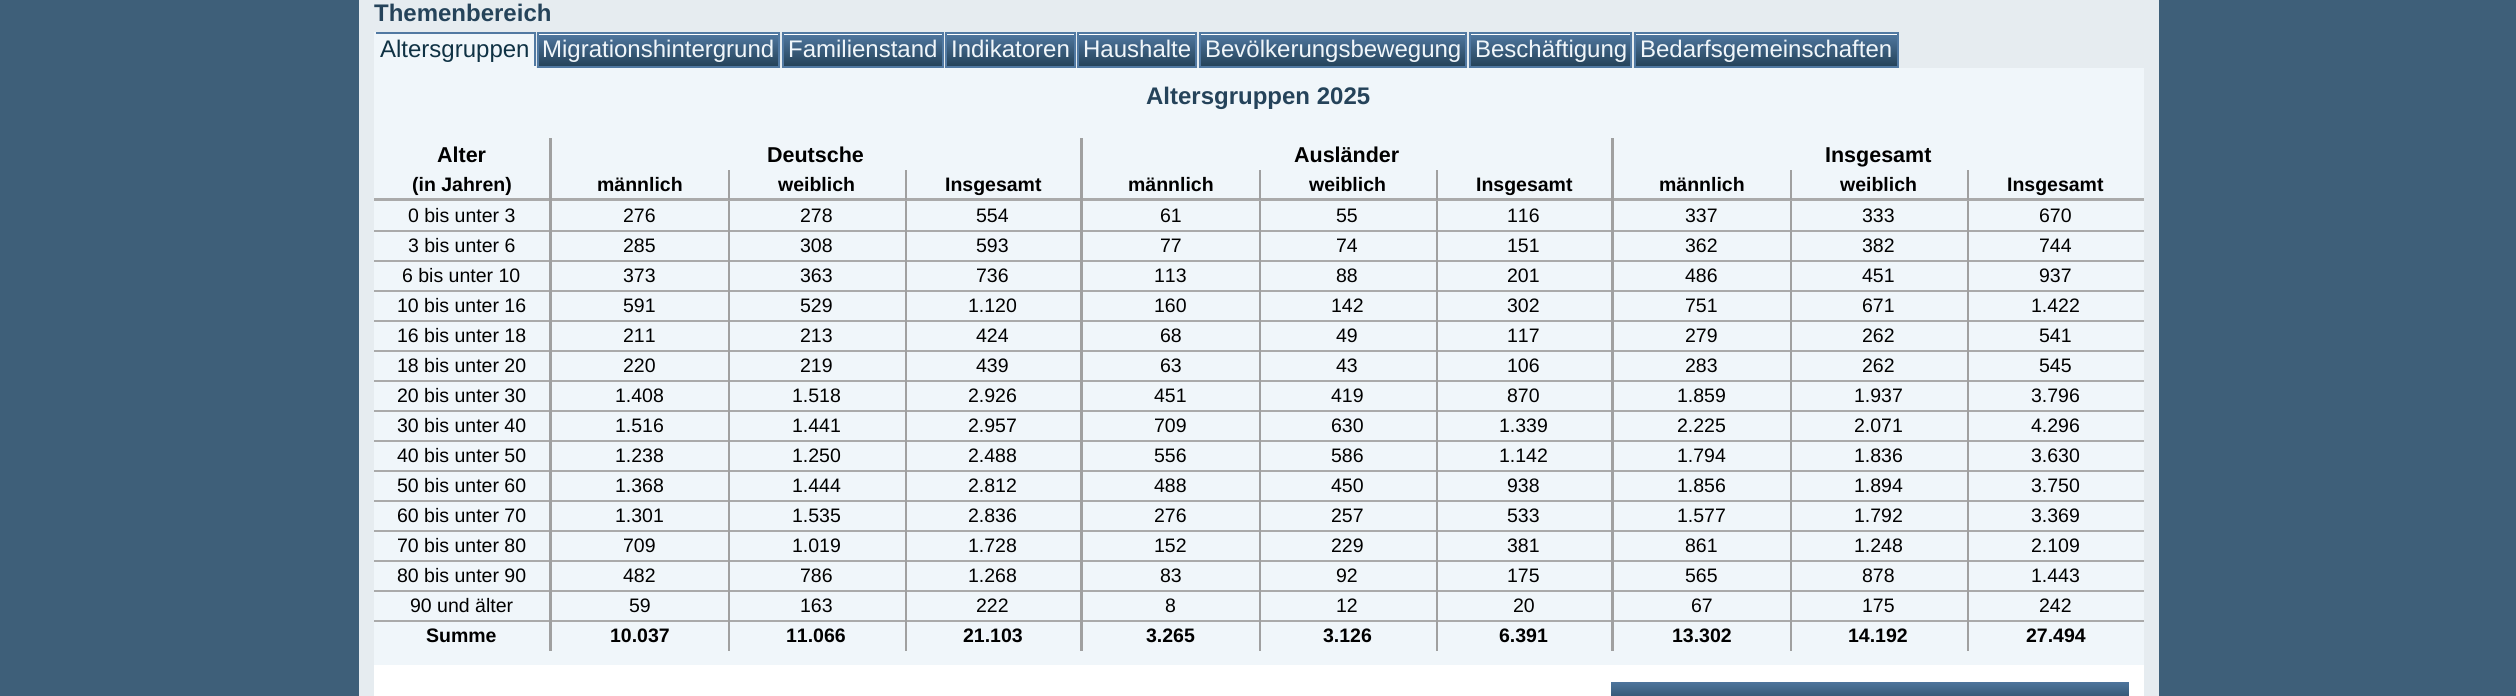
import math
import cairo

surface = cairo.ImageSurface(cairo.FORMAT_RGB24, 2516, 696)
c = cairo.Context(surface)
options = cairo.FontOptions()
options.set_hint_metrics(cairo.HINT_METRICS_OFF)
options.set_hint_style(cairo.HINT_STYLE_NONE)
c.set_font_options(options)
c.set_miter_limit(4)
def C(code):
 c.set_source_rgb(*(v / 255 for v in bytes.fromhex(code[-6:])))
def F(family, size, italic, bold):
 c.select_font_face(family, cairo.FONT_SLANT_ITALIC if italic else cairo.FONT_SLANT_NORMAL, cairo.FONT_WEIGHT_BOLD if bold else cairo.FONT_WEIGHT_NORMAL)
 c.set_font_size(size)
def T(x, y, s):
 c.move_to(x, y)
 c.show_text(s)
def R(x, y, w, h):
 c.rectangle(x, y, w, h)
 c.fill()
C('3e5f79')
c.paint()
C('e6ecf0')
R(359,0,1800,696)
F('Liberation Sans',24,0,1)
C('25435a')
T(374,21,'Themenbereich')
C('f0f6fa')
R(376,34,158,32)
C('5179a2')
R(374,32,162,2)
R(534,32,2,36)
C('f0f6fa')
R(374,66,162,2)
R(374,32,2,36)
F('Liberation Sans',24,0,0)
C('0f3244')
T(380,57,'Altersgruppen')
gradient = cairo.LinearGradient(539,33,539,66)
gradient.add_color_stop_rgba(0,0.318,0.475,0.635,1)
gradient.add_color_stop_rgba(1,0.145,0.263,0.353,1)
c.set_source(gradient)
R(539,35,239,31)
C('ffffff')
R(539,34,240,1)
c.rectangle(538,33,241,34)
C('5179a2')
c.stroke()
C('f0f6fa')
T(542,57,'Migrationshintergrund')
gradient = cairo.LinearGradient(783,33,783,66)
gradient.add_color_stop_rgba(0,0.318,0.475,0.635,1)
gradient.add_color_stop_rgba(1,0.145,0.263,0.353,1)
c.set_source(gradient)
R(784,35,158,31)
C('ffffff')
R(783,34,159,1)
c.rectangle(783,33,160,34)
C('5179a2')
c.stroke()
C('f0f6fa')
T(788,57,'Familienstand')
gradient = cairo.LinearGradient(947,33,947,66)
gradient.add_color_stop_rgba(0,0.318,0.475,0.635,1)
gradient.add_color_stop_rgba(1,0.145,0.263,0.353,1)
c.set_source(gradient)
R(947,35,127,31)
C('ffffff')
R(947,34,127,1)
c.rectangle(946,33,129,34)
C('5179a2')
c.stroke()
C('f0f6fa')
T(951,57,'Indikatoren')
gradient = cairo.LinearGradient(1079,33,1079,66)
gradient.add_color_stop_rgba(0,0.318,0.475,0.635,1)
gradient.add_color_stop_rgba(1,0.145,0.263,0.353,1)
c.set_source(gradient)
R(1079,35,116,31)
C('ffffff')
R(1079,34,117,1)
c.rectangle(1078,33,118,34)
C('5179a2')
c.stroke()
C('f0f6fa')
T(1083,57,'Haushalte')
gradient = cairo.LinearGradient(1200,33,1200,66)
gradient.add_color_stop_rgba(0,0.318,0.475,0.635,1)
gradient.add_color_stop_rgba(1,0.145,0.263,0.353,1)
c.set_source(gradient)
R(1201,35,264,31)
C('ffffff')
R(1200,34,266,1)
c.rectangle(1200,33,266,34)
C('5179a2')
c.stroke()
C('f0f6fa')
T(1205,57,'Bevölkerungsbewegung')
gradient = cairo.LinearGradient(1470,33,1470,66)
gradient.add_color_stop_rgba(0,0.318,0.475,0.635,1)
gradient.add_color_stop_rgba(1,0.145,0.263,0.353,1)
c.set_source(gradient)
R(1471,35,159,31)
C('ffffff')
R(1470,34,161,1)
c.rectangle(1470,33,161,34)
C('5179a2')
c.stroke()
C('f0f6fa')
T(1475,57,'Beschäftigung')
gradient = cairo.LinearGradient(1635,33,1635,66)
gradient.add_color_stop_rgba(0,0.318,0.475,0.635,1)
gradient.add_color_stop_rgba(1,0.145,0.263,0.353,1)
c.set_source(gradient)
R(1636,35,261,31)
C('ffffff')
R(1635,34,263,1)
c.rectangle(1635,33,263,34)
C('5179a2')
c.stroke()
C('f0f6fa')
T(1640,57,'Bedarfsgemeinschaften')
R(374,68,1770,597)
F('Liberation Sans',24,0,1)
C('25435a')
T(1146,104,'Altersgruppen 2025')
F('Liberation Sans',21.5,0,1)
C('000000')
T(437,162,'Alter')
T(767,162,'Deutsche')
T(1294,162,'Ausländer')
T(1825,162,'Insgesamt')
F('Liberation Sans',19.5,0,1)
T(412,191,'(in Jahren)')
C('aaaaaa')
R(374,198,1770,3)
C('a0a0a0')
R(728,170,2,30)
C('000000')
T(597,191,'männlich')
C('a0a0a0')
R(905,170,2,30)
C('000000')
T(778,191,'weiblich')
T(945,191,'Insgesamt')
C('a0a0a0')
R(1259,170,2,30)
C('000000')
T(1128,191,'männlich')
C('a0a0a0')
R(1436,170,2,30)
C('000000')
T(1309,191,'weiblich')
T(1476,191,'Insgesamt')
C('a0a0a0')
R(1790,170,2,30)
C('000000')
T(1659,191,'männlich')
C('a0a0a0')
R(1967,170,2,30)
C('000000')
T(1840,191,'weiblich')
T(2007,191,'Insgesamt')
F('Liberation Sans',19.5,0,0)
T(408,222,'0 bis unter 3')
T(623,222,'276')
T(800,222,'278')
T(976,222,'554')
T(1160,222,'61')
T(1336,222,'55')
T(1507,222,'116')
T(1685,222,'337')
T(1862,222,'333')
T(2039,222,'670')
C('aaaaaa')
R(374,230,1770,2)
C('000000')
T(408,252,'3 bis unter 6')
T(623,252,'285')
T(800,252,'308')
T(976,252,'593')
T(1160,252,'77')
T(1336,252,'74')
T(1507,252,'151')
T(1685,252,'362')
T(1862,252,'382')
T(2039,252,'744')
C('aaaaaa')
R(374,260,1770,2)
C('000000')
T(402,282,'6 bis unter 10')
T(623,282,'373')
T(800,282,'363')
T(976,282,'736')
T(1154,282,'113')
T(1336,282,'88')
T(1507,282,'201')
T(1685,282,'486')
T(1862,282,'451')
T(2039,282,'937')
C('aaaaaa')
R(374,290,1770,2)
C('000000')
T(397,312,'10 bis unter 16')
T(623,312,'591')
T(800,312,'529')
T(968,312,'1.120')
T(1154,312,'160')
T(1331,312,'142')
T(1507,312,'302')
T(1685,312,'751')
T(1862,312,'671')
T(2031,312,'1.422')
C('aaaaaa')
R(374,320,1770,2)
C('000000')
T(397,342,'16 bis unter 18')
T(623,342,'211')
T(800,342,'213')
T(976,342,'424')
T(1160,342,'68')
T(1336,342,'49')
T(1507,342,'117')
T(1685,342,'279')
T(1862,342,'262')
T(2039,342,'541')
C('aaaaaa')
R(374,350,1770,2)
C('000000')
T(397,372,'18 bis unter 20')
T(623,372,'220')
T(800,372,'219')
T(976,372,'439')
T(1160,372,'63')
T(1336,372,'43')
T(1507,372,'106')
T(1685,372,'283')
T(1862,372,'262')
T(2039,372,'545')
C('aaaaaa')
R(374,380,1770,2)
C('000000')
T(397,402,'20 bis unter 30')
T(615,402,'1.408')
T(792,402,'1.518')
T(968,402,'2.926')
T(1154,402,'451')
T(1331,402,'419')
T(1507,402,'870')
T(1677,402,'1.859')
T(1854,402,'1.937')
T(2031,402,'3.796')
C('aaaaaa')
R(374,410,1770,2)
C('000000')
T(397,432,'30 bis unter 40')
T(615,432,'1.516')
T(792,432,'1.441')
T(968,432,'2.957')
T(1154,432,'709')
T(1331,432,'630')
T(1499,432,'1.339')
T(1677,432,'2.225')
T(1854,432,'2.071')
T(2031,432,'4.296')
C('aaaaaa')
R(374,440,1770,2)
C('000000')
T(397,462,'40 bis unter 50')
T(615,462,'1.238')
T(792,462,'1.250')
T(968,462,'2.488')
T(1154,462,'556')
T(1331,462,'586')
T(1499,462,'1.142')
T(1677,462,'1.794')
T(1854,462,'1.836')
T(2031,462,'3.630')
C('aaaaaa')
R(374,470,1770,2)
C('000000')
T(397,492,'50 bis unter 60')
T(615,492,'1.368')
T(792,492,'1.444')
T(968,492,'2.812')
T(1154,492,'488')
T(1331,492,'450')
T(1507,492,'938')
T(1677,492,'1.856')
T(1854,492,'1.894')
T(2031,492,'3.750')
C('aaaaaa')
R(374,500,1770,2)
C('000000')
T(397,522,'60 bis unter 70')
T(615,522,'1.301')
T(792,522,'1.535')
T(968,522,'2.836')
T(1154,522,'276')
T(1331,522,'257')
T(1507,522,'533')
T(1677,522,'1.577')
T(1854,522,'1.792')
T(2031,522,'3.369')
C('aaaaaa')
R(374,530,1770,2)
C('000000')
T(397,552,'70 bis unter 80')
T(623,552,'709')
T(792,552,'1.019')
T(968,552,'1.728')
T(1154,552,'152')
T(1331,552,'229')
T(1507,552,'381')
T(1685,552,'861')
T(1854,552,'1.248')
T(2031,552,'2.109')
C('aaaaaa')
R(374,560,1770,2)
C('000000')
T(397,582,'80 bis unter 90')
T(623,582,'482')
T(800,582,'786')
T(968,582,'1.268')
T(1160,582,'83')
T(1336,582,'92')
T(1507,582,'175')
T(1685,582,'565')
T(1862,582,'878')
T(2031,582,'1.443')
C('aaaaaa')
R(374,590,1770,2)
C('000000')
T(410,612,'90 und älter')
T(629,612,'59')
T(800,612,'163')
T(976,612,'222')
T(1165,612,'8')
T(1336,612,'12')
T(1513,612,'20')
T(1691,612,'67')
T(1862,612,'175')
T(2039,612,'242')
C('aaaaaa')
R(374,620,1770,2)
C('a0a0a0')
R(549,138,3,513)
F('Liberation Sans',19.5,0,1)
C('000000')
T(426,642,'Summe')
C('a0a0a0')
R(728,201,2,450)
C('000000')
T(610,642,'10.037')
C('a0a0a0')
R(905,201,2,450)
C('000000')
T(786,642,'11.066')
C('a0a0a0')
R(1080,138,3,513)
C('000000')
T(963,642,'21.103')
C('a0a0a0')
R(1259,201,2,450)
C('000000')
T(1146,642,'3.265')
C('a0a0a0')
R(1436,201,2,450)
C('000000')
T(1323,642,'3.126')
C('a0a0a0')
R(1611,138,3,513)
C('000000')
T(1499,642,'6.391')
C('a0a0a0')
R(1790,201,2,450)
C('000000')
T(1672,642,'13.302')
C('a0a0a0')
R(1967,201,2,450)
C('000000')
T(1848,642,'14.192')
T(2026,642,'27.494')
C('ffffff')
R(374,665,1770,31)
gradient = cairo.LinearGradient(1611,680,1611,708)
gradient.add_color_stop_rgba(0,0.318,0.475,0.635,1)
gradient.add_color_stop_rgba(1,0.145,0.263,0.353,1)
c.set_source(gradient)
R(1611,682,518,14)
surface.write_to_png('o.png')
